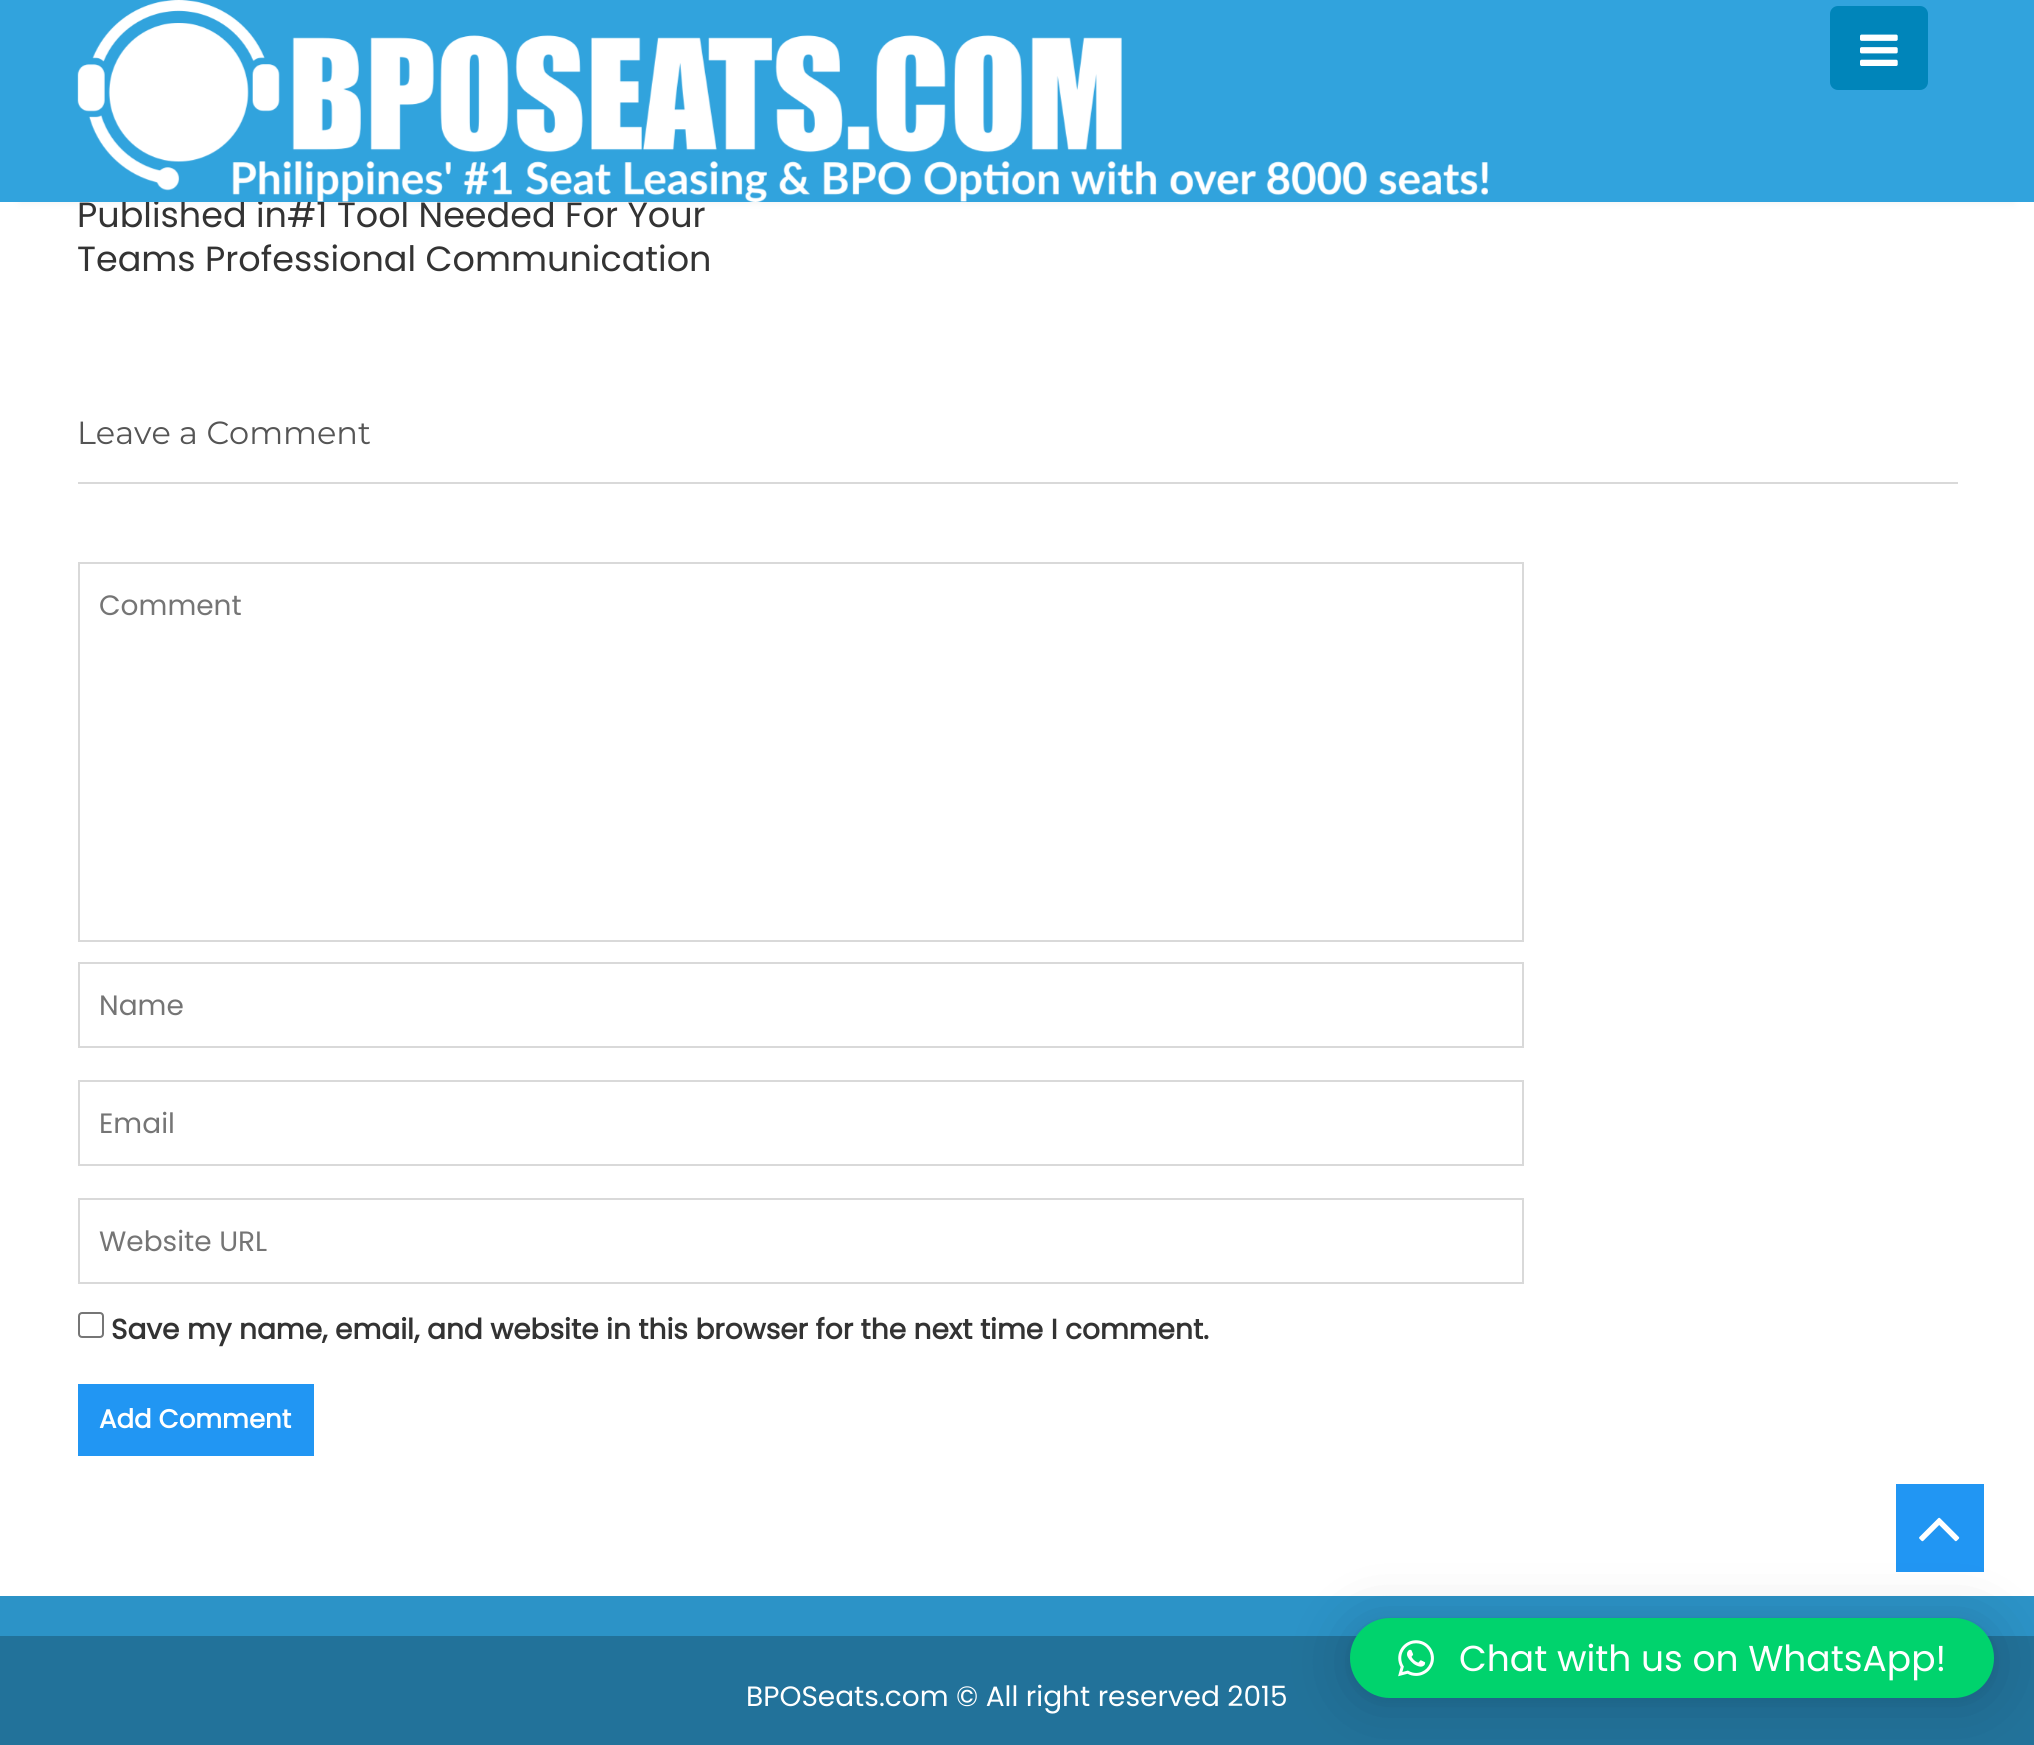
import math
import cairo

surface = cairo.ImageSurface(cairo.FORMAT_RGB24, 2034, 1745)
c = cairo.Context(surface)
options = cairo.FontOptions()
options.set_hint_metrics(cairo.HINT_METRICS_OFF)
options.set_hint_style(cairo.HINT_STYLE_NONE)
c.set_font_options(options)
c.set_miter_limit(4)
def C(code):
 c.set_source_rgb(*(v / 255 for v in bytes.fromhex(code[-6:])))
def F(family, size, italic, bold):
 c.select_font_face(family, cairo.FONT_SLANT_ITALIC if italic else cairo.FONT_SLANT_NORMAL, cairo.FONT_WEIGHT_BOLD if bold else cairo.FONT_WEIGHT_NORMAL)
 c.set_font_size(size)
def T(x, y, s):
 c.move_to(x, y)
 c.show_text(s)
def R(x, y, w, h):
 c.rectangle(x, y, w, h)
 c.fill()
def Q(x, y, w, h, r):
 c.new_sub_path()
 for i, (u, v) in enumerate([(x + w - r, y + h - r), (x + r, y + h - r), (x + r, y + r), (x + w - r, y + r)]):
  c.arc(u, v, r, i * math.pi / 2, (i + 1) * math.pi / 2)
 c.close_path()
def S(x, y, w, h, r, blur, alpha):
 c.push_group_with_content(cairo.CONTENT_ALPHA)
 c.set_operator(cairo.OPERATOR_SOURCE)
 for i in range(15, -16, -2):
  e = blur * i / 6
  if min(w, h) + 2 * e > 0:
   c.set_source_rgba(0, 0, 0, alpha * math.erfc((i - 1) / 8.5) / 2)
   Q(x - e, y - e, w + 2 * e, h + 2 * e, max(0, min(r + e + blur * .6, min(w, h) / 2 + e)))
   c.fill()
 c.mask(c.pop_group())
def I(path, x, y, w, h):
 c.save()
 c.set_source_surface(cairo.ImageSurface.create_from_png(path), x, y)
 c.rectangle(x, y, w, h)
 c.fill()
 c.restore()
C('ffffff')
c.paint()
C('eeeeee')
S(20,40,1994,162,0,4,.9)
F('Poppins',35,0,0)
C('333333')
T(77,227,'Published in#1 Tool Needed For Your')
C('31a3dd')
R(0,0,2034,202)
I('1.png',77,0,1411,202)
C('0085ba')
Q(1830,6,98,84,8)
c.fill()
I('2.png',1860,34,38,32)
C('333333')
T(77,271,'Teams Professional Communication')
C('d9d9d9')
R(78,482,1880,2)
F('Montserrat',32,0,0)
C('555555')
T(77,444,'Leave a Comment')
c.rectangle(79,563,1444,378)
C('d9d9d9')
c.stroke()
F('Poppins',28,0,0)
C('757575')
T(99,615,'Comment')
c.rectangle(79,963,1444,84)
C('d9d9d9')
c.stroke()
C('757575')
T(99,1015,'Name')
c.rectangle(79,1081,1444,84)
C('d9d9d9')
c.stroke()
C('757575')
T(99,1133,'Email')
c.rectangle(79,1199,1444,84)
C('d9d9d9')
c.stroke()
C('757575')
T(99,1251,'Website URL')
Q(79,1313,24,24,3)
C('767676')
c.stroke()
F('Poppins',28,0,1)
C('333333')
T(111,1339,'Save my name, email, and website in this browser for the next time I comment.')
C('2196f3')
R(78,1384,236,72)
F('Poppins',26,0,1)
C('ffffff')
T(99,1428,'Add Comment')
C('2c93c7')
R(0,1596,2034,40)
C('22729a')
R(0,1636,2034,109)
C('2196f3')
R(1896,1484,88,88)
I('3.png',1919,1517,41,25)
F('Poppins',28,0,0)
C('ffffff')
T(746,1706,'BPOSeats.com © All right reserved 2015')
C('000000')
S(1350,1622,644,80,40,32,.16)
S(1350,1620,644,80,40,6,.06)
C('00d36d')
Q(1350,1618,644,80,40)
c.fill()
I('4.png',1398,1640,36,37)
F('Poppins',36,0,0)
C('ffffff')
T(1459,1671,'Chat with us on WhatsApp!')
surface.write_to_png('o.png')
